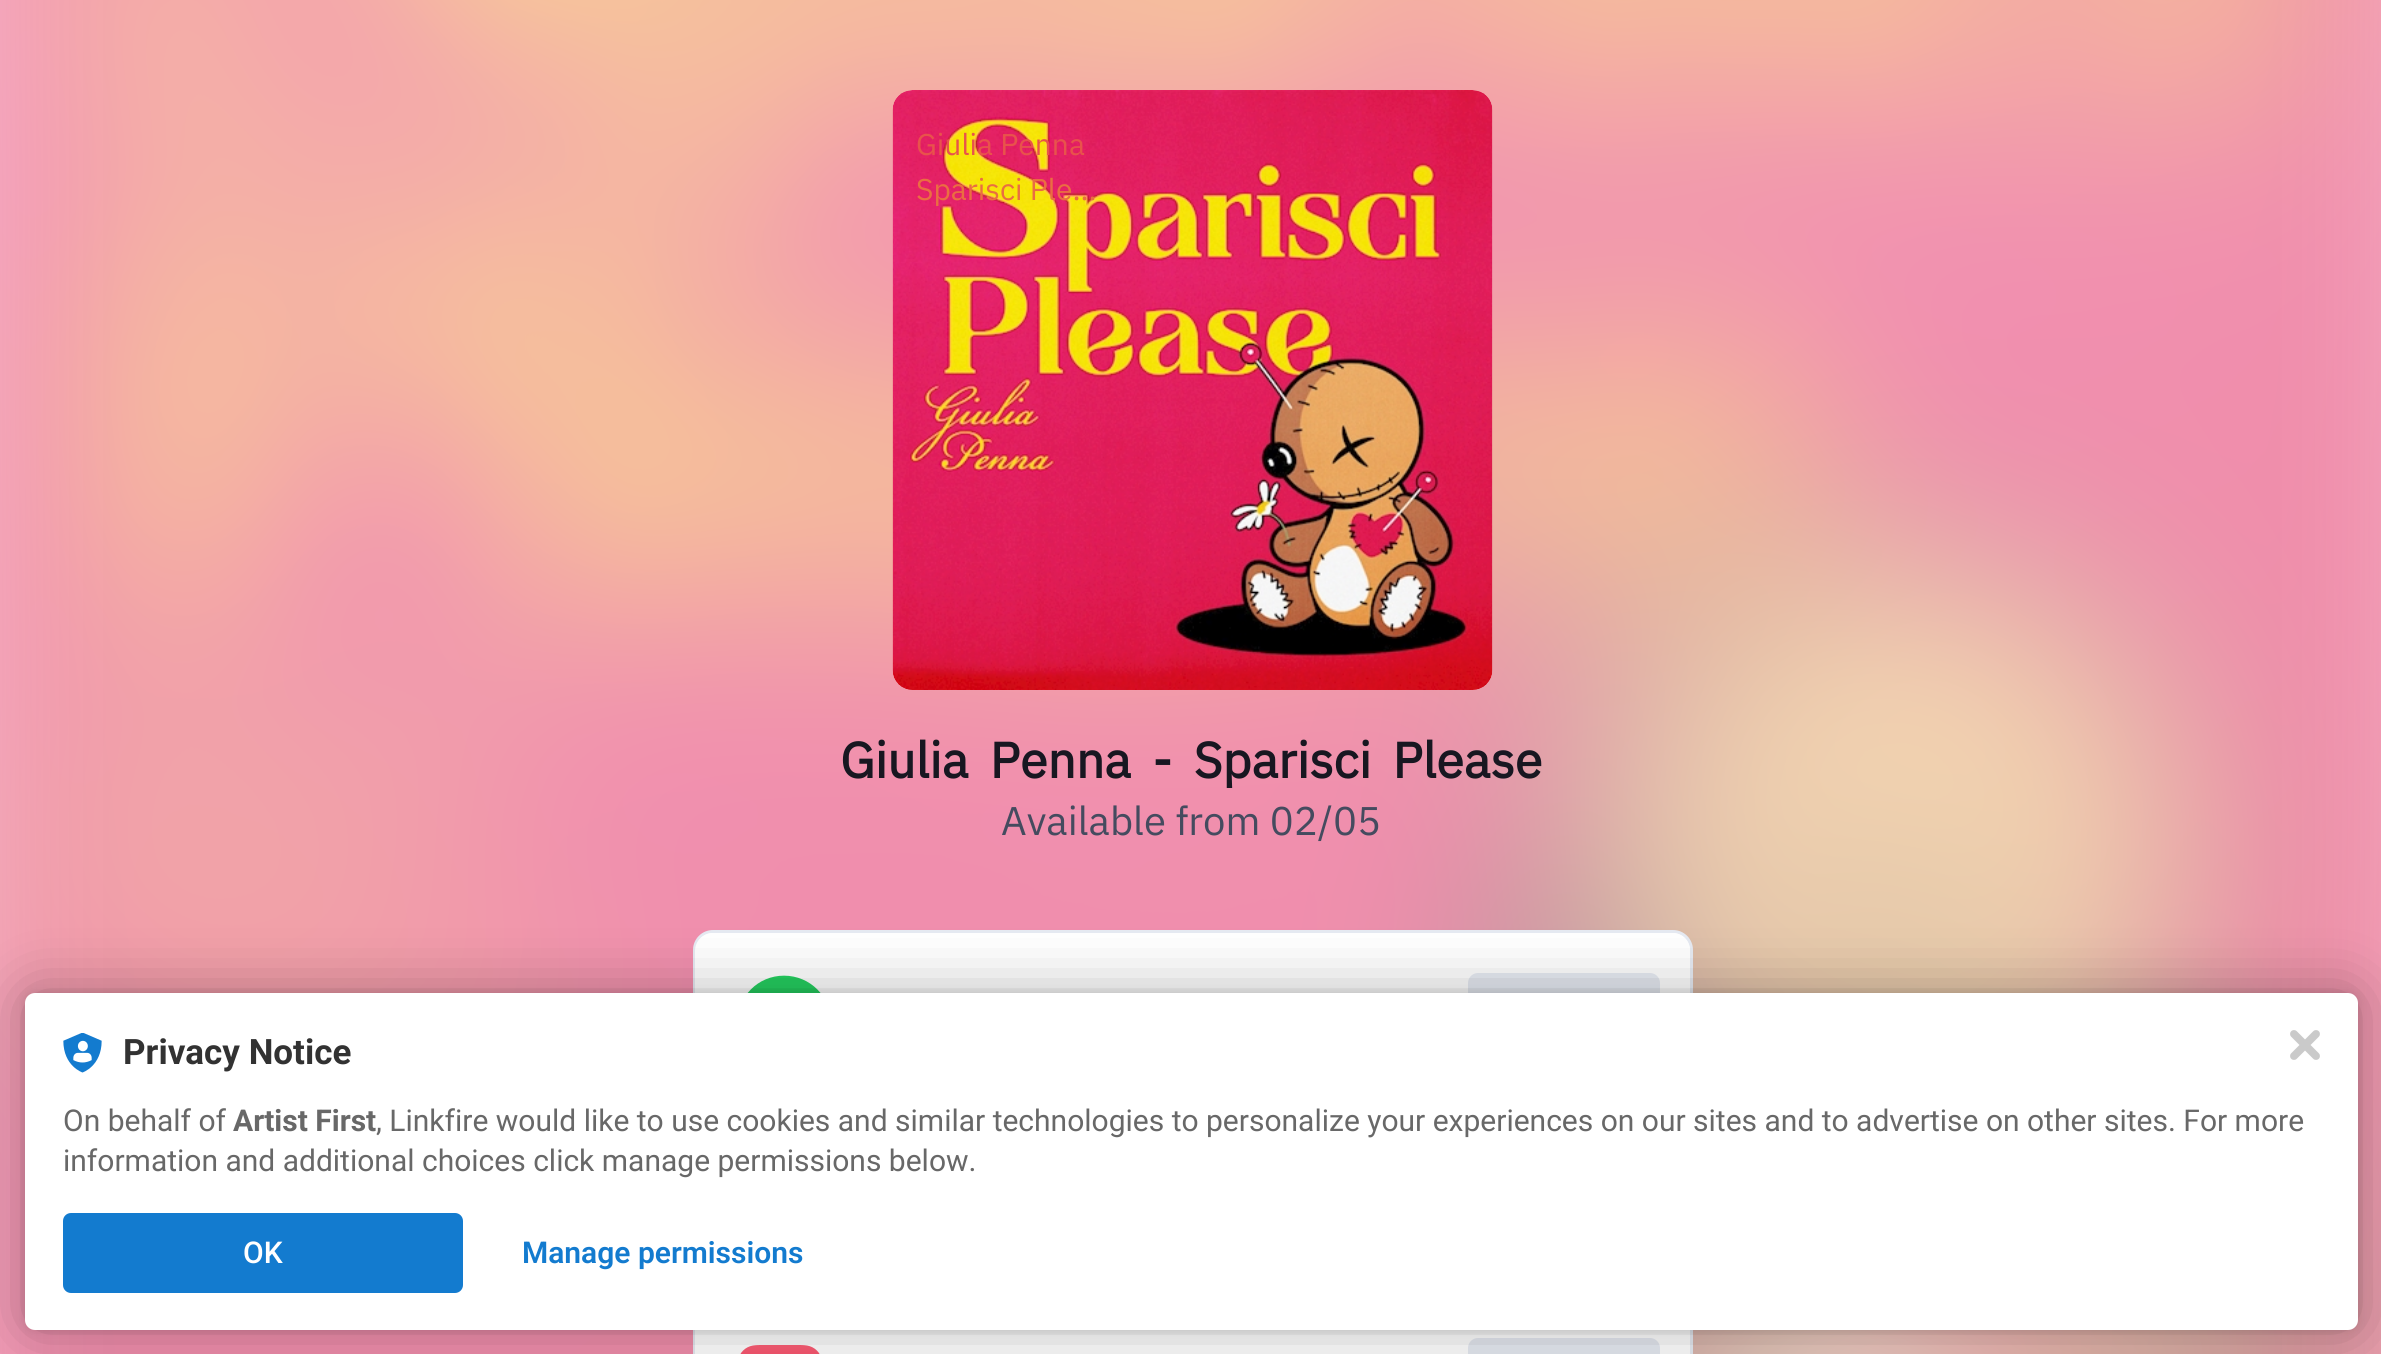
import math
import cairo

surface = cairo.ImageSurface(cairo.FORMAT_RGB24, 2381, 1354)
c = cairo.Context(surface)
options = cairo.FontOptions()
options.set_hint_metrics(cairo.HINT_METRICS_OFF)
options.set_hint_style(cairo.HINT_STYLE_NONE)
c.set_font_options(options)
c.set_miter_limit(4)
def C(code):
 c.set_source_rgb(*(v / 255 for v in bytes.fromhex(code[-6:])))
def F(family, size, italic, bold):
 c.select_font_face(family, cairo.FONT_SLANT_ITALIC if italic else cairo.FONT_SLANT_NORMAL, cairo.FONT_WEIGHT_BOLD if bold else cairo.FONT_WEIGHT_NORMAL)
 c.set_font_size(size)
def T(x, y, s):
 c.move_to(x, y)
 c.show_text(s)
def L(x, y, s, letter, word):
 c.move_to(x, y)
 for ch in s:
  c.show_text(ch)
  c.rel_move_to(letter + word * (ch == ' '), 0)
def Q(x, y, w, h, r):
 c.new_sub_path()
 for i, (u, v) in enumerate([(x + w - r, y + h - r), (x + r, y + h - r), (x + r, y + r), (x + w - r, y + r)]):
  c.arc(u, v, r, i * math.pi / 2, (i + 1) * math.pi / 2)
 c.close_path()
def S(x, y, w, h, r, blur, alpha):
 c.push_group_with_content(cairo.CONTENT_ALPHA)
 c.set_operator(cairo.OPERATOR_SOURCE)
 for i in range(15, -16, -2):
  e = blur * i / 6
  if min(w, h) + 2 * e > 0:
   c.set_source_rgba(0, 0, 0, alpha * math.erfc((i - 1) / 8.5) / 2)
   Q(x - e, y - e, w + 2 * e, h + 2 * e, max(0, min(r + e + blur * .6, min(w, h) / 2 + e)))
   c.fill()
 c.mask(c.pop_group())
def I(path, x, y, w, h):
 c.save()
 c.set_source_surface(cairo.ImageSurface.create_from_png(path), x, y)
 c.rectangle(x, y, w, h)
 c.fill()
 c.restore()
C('ffffff')
c.paint()
I('1.png',0,0,2381,1354)
I('2.png',892,90,601,600)
F('IBM Plex Sans',30,0,0)
C('e8534b')
T(916,155,'Giulia Penna')
C('ea6e41')
T(916,200,'Sparisci Ple…')
F('IBM Plex Sans',50,0,1)
C('181721')
L(840,778,'Giulia Penna - Sparisci Please',0,9.5)
F('IBM Plex Sans',40,0,0)
C('454b5f')
T(1001,835,'Available from 02/05')
C('ffffff')
Q(694.5,931.5,997,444,18.5)
c.fill_preserve()
C('e6eaf2')
c.set_line_width(3)
c.stroke()
C('ffffff')
Q(695,933,995,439,18)
c.fill()
I('3.png',747,975,74,18)
C('e6eaf2')
Q(1468,973,192,100,10)
c.fill()
I('4.png',740,1345,80,9)
Q(1468,1338,192,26,10)
c.fill()
C('000000')
S(25,993,2333,337,10,5,.12)
S(25,993,2333,337,10,30,.3)
C('ffffff')
Q(25,993,2333,337,10)
c.fill()
I('5.png',63,1033,39,40)
F('Roboto',35,0,1)
C('323232')
T(123,1064,'Privacy Notice')
F('Roboto',30,0,0)
C('686868')
T(63,1131,'On behalf of')
F('Roboto',30,0,1)
T(233,1131,'Artist First')
F('Roboto',30,0,0)
T(376,1131,', Linkfire would like to use cookies and similar technologies to personalize your experiences on our sites and to advertise on other sites. For more')
T(63,1171,'information and additional choices click manage permissions below.')
C('137bcf')
Q(63,1213,400,80,8)
c.fill()
F('Roboto Medium',30,0,0)
C('ffffff')
T(243,1263,'OK')
F('Roboto SemiBold',30,0,0)
C('137bcf')
T(522,1263,'Manage permissions')
I('6.png',2290,1030,30,30)
surface.write_to_png('o.png')
